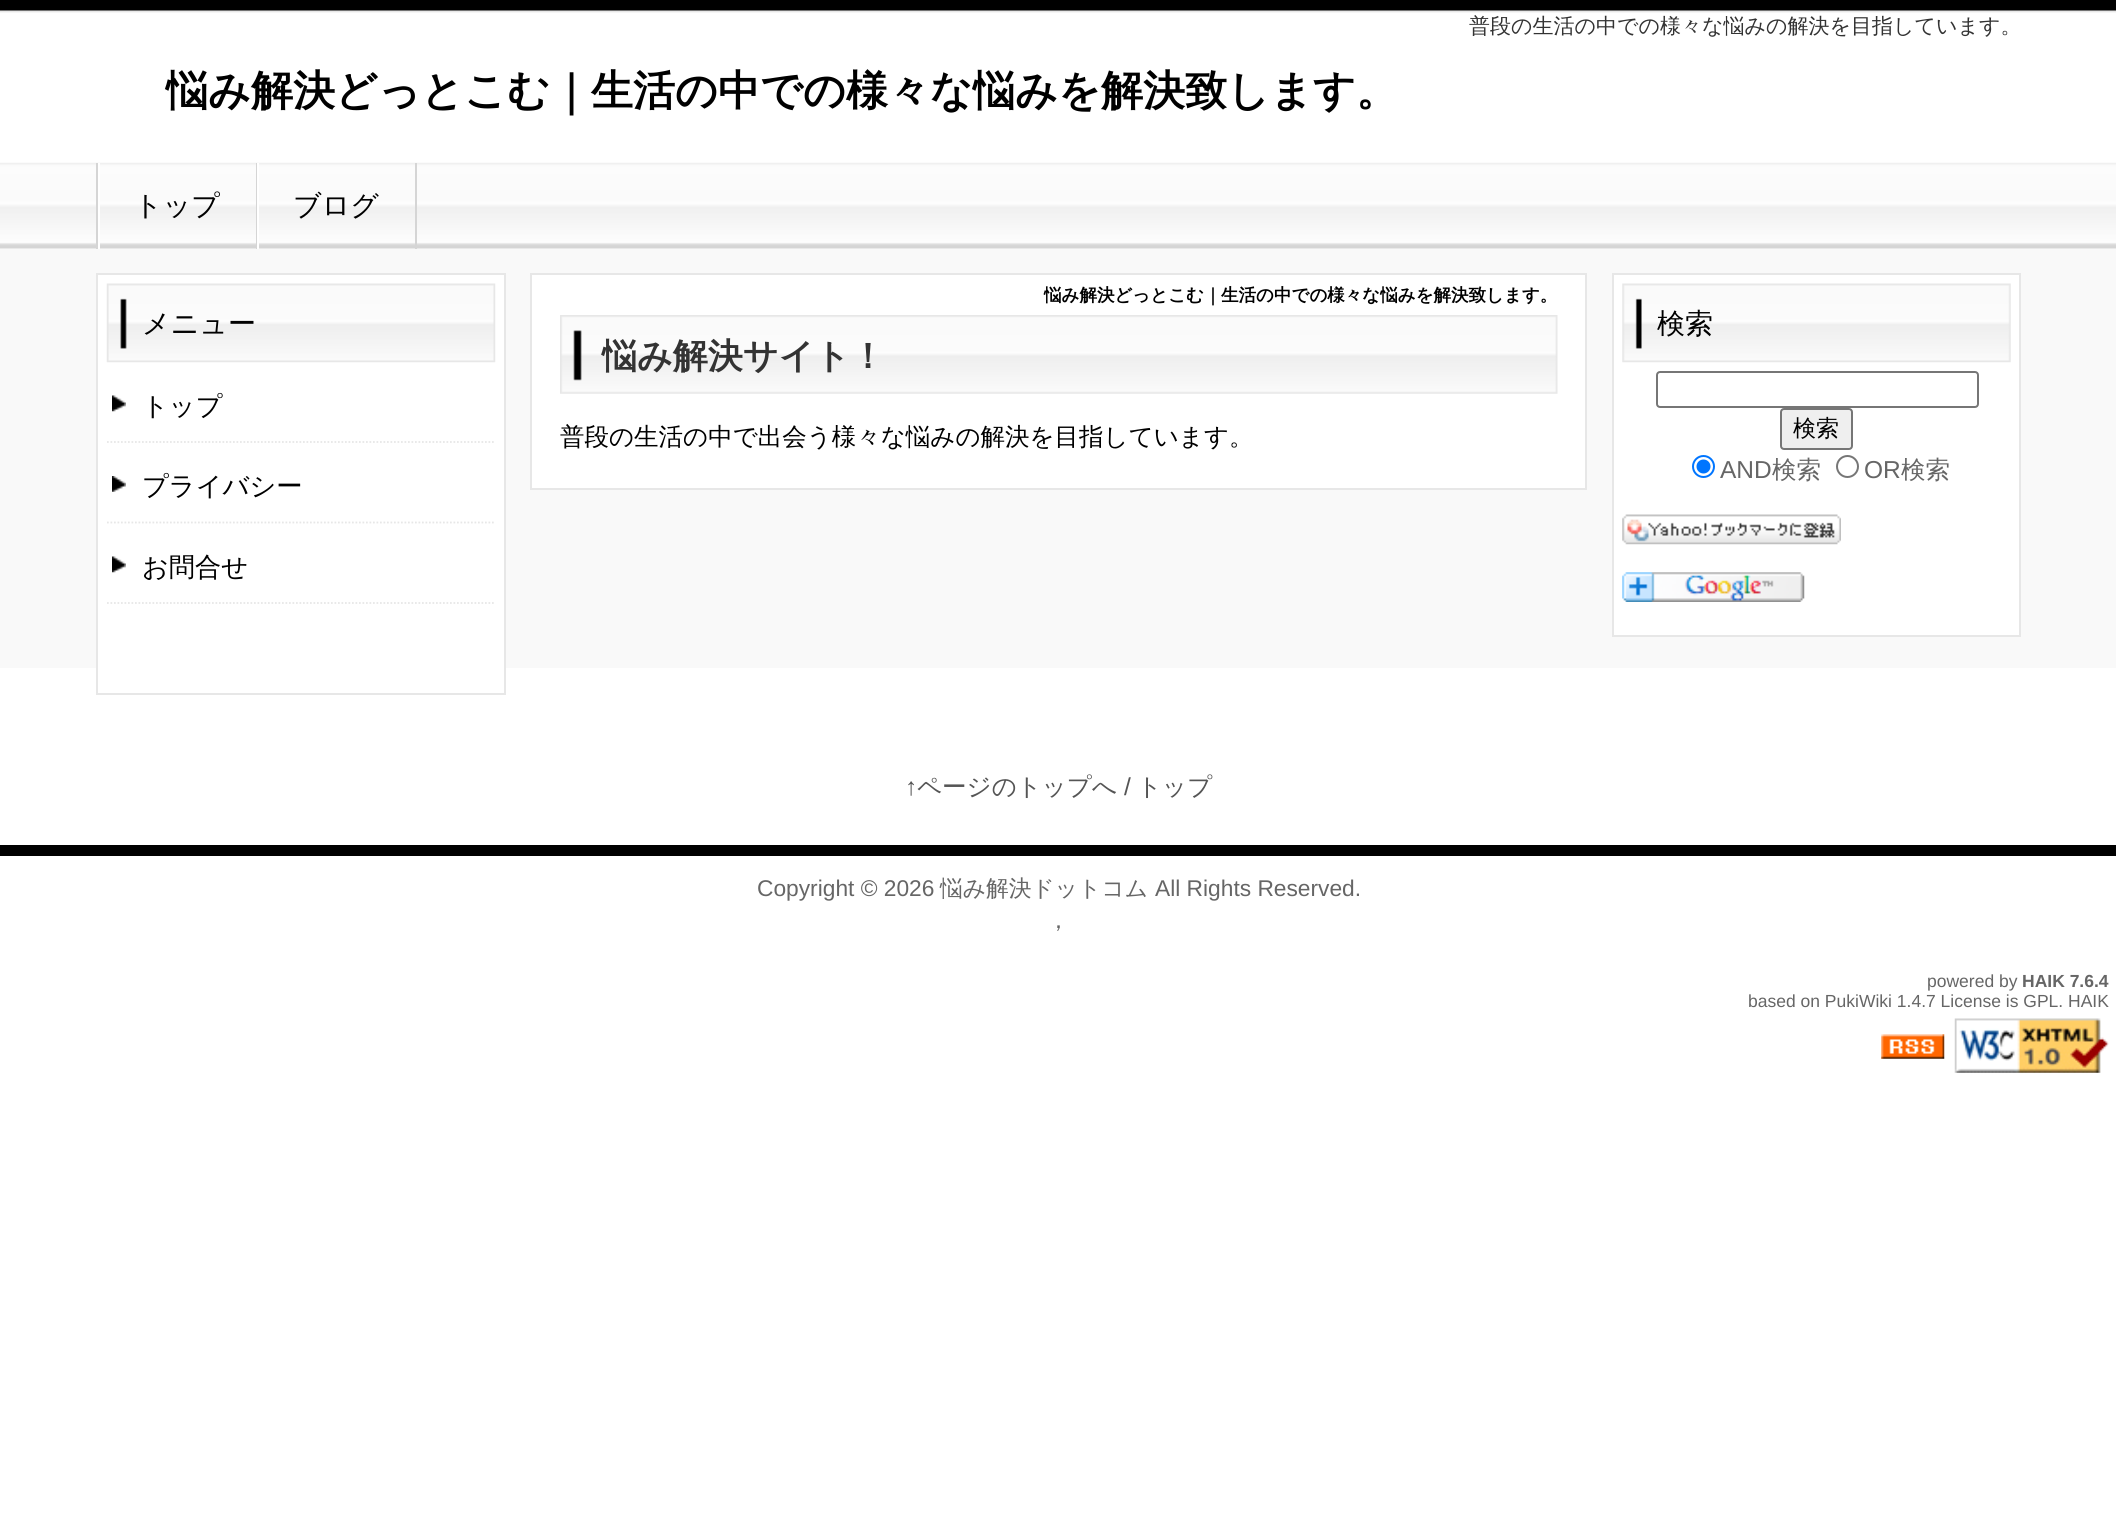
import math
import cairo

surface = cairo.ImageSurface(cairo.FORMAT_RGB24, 2116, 1519)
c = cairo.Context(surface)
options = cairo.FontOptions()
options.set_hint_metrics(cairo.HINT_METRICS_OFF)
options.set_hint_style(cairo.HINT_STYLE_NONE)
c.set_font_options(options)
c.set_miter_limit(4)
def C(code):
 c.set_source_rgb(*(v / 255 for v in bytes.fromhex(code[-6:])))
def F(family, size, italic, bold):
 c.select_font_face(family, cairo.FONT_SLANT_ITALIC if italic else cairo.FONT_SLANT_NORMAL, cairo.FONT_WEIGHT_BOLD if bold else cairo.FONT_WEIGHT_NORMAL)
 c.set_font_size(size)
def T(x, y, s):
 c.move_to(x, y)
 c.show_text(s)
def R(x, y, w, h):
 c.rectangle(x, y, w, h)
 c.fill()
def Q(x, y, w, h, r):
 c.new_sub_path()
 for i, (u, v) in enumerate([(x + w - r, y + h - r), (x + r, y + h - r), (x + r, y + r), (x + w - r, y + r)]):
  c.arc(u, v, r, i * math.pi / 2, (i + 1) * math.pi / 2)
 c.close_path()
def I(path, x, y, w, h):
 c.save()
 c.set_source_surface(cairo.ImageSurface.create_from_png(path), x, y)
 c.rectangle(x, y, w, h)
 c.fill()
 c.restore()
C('ffffff')
c.paint()
I('1.png',0,0,2116,668)
F('WenQuanYi Zen Hei Medium',21,0,0)
C('333333')
T(1469,33,'普段の生活の中での様々な悩みの解決を目指しています。')
F('WenQuanYi Zen Hei',42,0,1)
C('000000')
T(166,105,'悩み解決どっとこむ｜生活の中での様々な悩みを解決致します。')
I('2.png',0,162,2116,87)
C('d5d5d5')
R(96,163,2,86)
R(256,163,1,86)
C('ffffff')
R(98,163,2,86)
F('WenQuanYi Zen Hei Medium',28,0,0)
C('000000')
T(134,215,'トップ')
C('d5d5d5')
R(415,163,2,86)
C('ffffff')
R(257,163,2,86)
C('000000')
T(293,215,'ブログ')
C('ffffff')
R(98,275,406,393)
c.rectangle(97,274,408,420)
C('e7e7e7')
c.stroke()
I('3.png',106,283,390,80)
C('000000')
T(142,333,'メニュー')
I('4.png',112,395,14,17)
c.new_path()
c.move_to(107,442)
c.line_to(495,442)
C('e7e7e7')
c.set_line_width(1.8)
c.set_dash([1.75,1.75])
c.stroke()
F('WenQuanYi Zen Hei Medium',26.25,0,0)
C('000000')
T(142,415,'トップ')
I('5.png',112,476,14,16)
c.new_path()
c.move_to(107,522.5)
c.line_to(495,522.5)
C('e7e7e7')
c.stroke()
C('000000')
T(142,495,'プライバシー')
I('4.png',112,556,14,17)
c.new_path()
c.move_to(107,603)
c.line_to(495,603)
C('e7e7e7')
c.stroke()
C('000000')
T(142,576,'お問合せ')
C('ffffff')
c.rectangle(531,274,1055,215)
c.fill_preserve()
C('e7e7e7')
c.set_line_width(2)
c.set_dash([])
c.stroke()
F('WenQuanYi Zen Hei',17.5,0,1)
C('000000')
T(1044,301,'悩み解決どっとこむ｜生活の中での様々な悩みを解決致します。')
I('6.png',560,315,998,79)
F('WenQuanYi Zen Hei',35,0,1)
C('333333')
T(602,368,'悩み解決サイト！')
F('WenQuanYi Zen Hei Medium',24.5,0,0)
C('000000')
T(560,445,'普段の生活の中で出会う様々な悩みの解決を目指しています。')
C('ffffff')
c.rectangle(1613,274,407,362)
c.fill_preserve()
C('e7e7e7')
c.stroke()
I('7.png',1622,283,389,80)
F('WenQuanYi Zen Hei Medium',28,0,0)
C('000000')
T(1657,333,'検索')
Q(1657,372,321,35,3)
C('767676')
c.stroke()
C('efefef')
Q(1781,409,71,40,3)
c.fill_preserve()
C('767676')
c.stroke()
F('WenQuanYi Zen Hei Medium',23,0,0)
C('000000')
T(1793,436,'検索')
c.new_path()
c.arc(1703.5,466.5,10.5,0,2 * math.pi)
C('0075ff')
c.stroke()
c.arc(1703.5,466.5,7,0,2 * math.pi)
c.fill()
F('Liberation Sans',24.5,0,0)
C('666666')
T(1720,478,'AND')
F('WenQuanYi Zen Hei Medium',24.5,0,0)
T(1772,478,'検索')
c.new_path()
c.arc(1847.5,466.5,10.5,0,2 * math.pi)
C('767676')
c.stroke()
F('Liberation Sans',24.5,0,0)
C('666666')
T(1864,478,'OR')
F('WenQuanYi Zen Hei Medium',24.5,0,0)
T(1901,478,'検索')
I('8.png',1622,514,219,31)
I('9.png',1622,572,183,30)
F('Liberation Sans',24.5,0,0)
C('555555')
T(905,795,'↑')
F('WenQuanYi Zen Hei Medium',24.5,0,0)
T(917,795,'ページのトップへ')
F('Liberation Sans',24.5,0,0)
T(1124,795,'/')
F('WenQuanYi Zen Hei Medium',24.5,0,0)
T(1137,795,'トップ')
C('000000')
R(0,845,2116,11)
F('Liberation Sans',22.75,0,0)
C('666666')
T(757,896,'Copyright © 2026')
F('WenQuanYi Zen Hei Medium',22.75,0,0)
T(940,896,'悩み解決ドットコム')
F('Liberation Sans',22.75,0,0)
T(1155,896,'All Rights Reserved.')
F('WenQuanYi Zen Hei Medium',22.75,0,0)
T(1047,928,'，')
F('Liberation Sans',17.5,0,0)
T(1927,987,'powered by')
F('Liberation Sans',17.5,0,1)
T(2022,987,'HAIK 7.6.4')
F('Liberation Sans',17.5,0,0)
T(1748,1007,'based on PukiWiki 1.4.7 License is GPL. HAIK')
I('10.png',1881,1034,64,25)
I('11.png',1954,1018,155,55)
surface.write_to_png('o.png')
